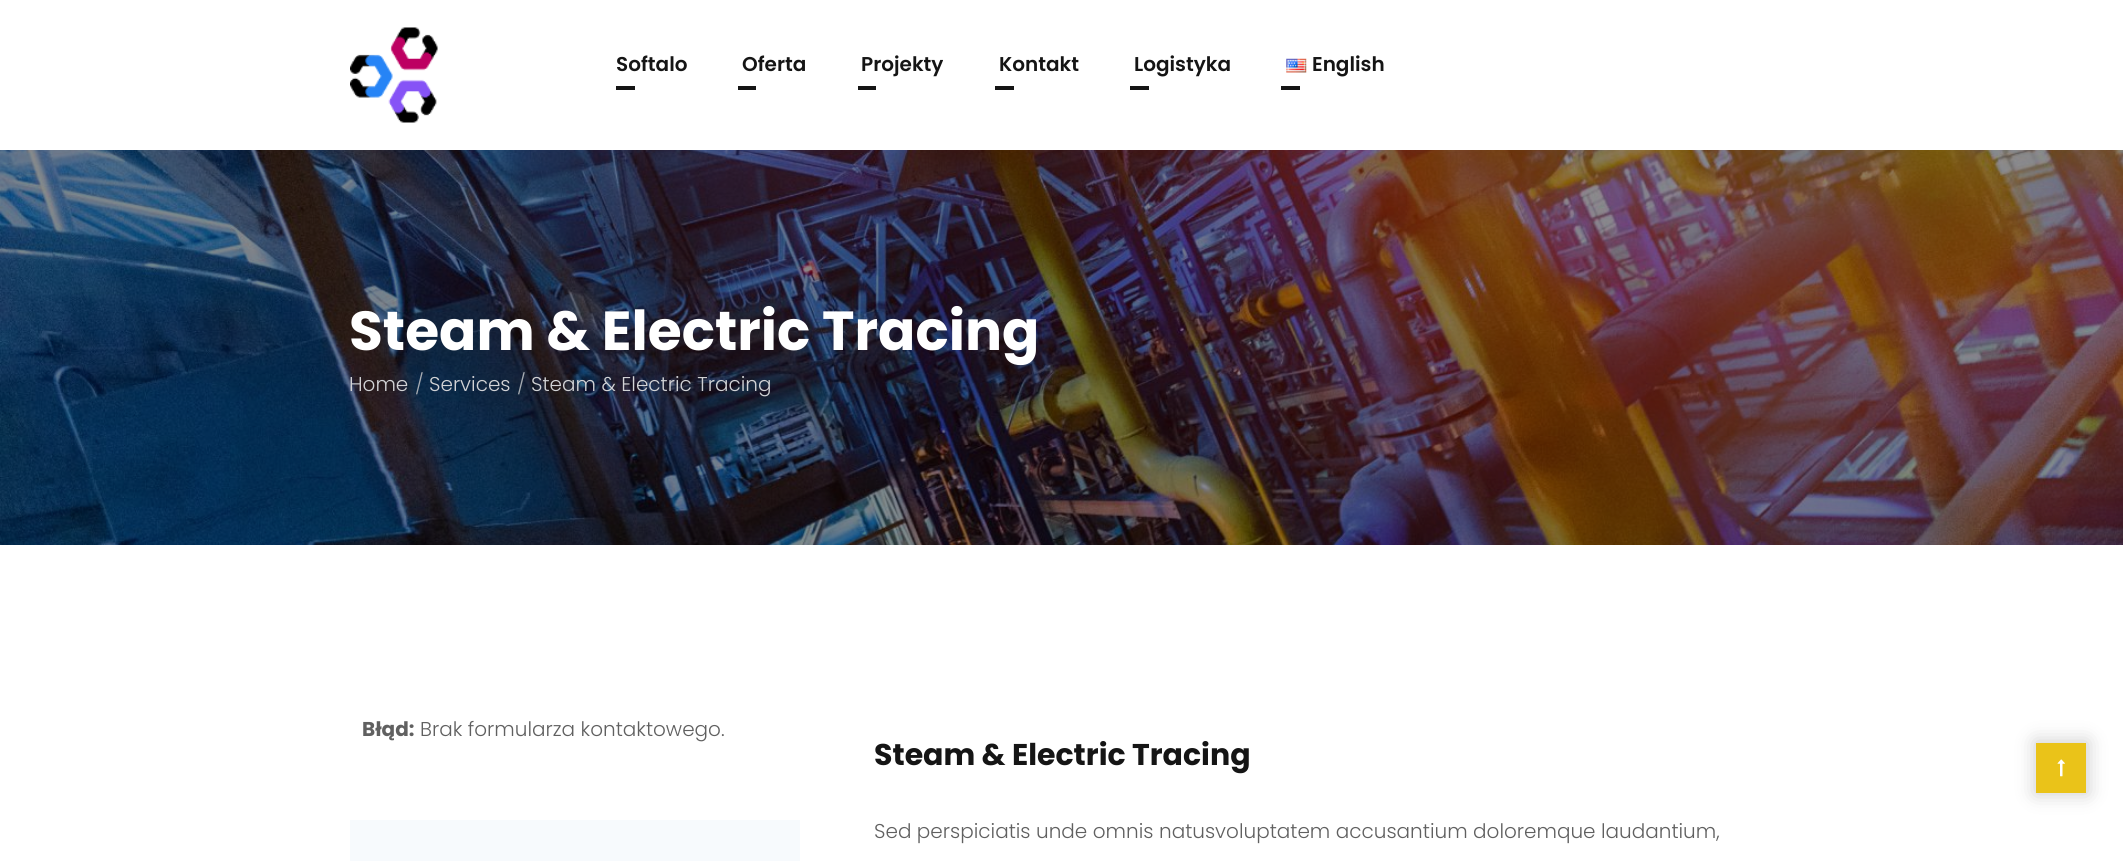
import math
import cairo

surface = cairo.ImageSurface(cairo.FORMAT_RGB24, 2123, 861)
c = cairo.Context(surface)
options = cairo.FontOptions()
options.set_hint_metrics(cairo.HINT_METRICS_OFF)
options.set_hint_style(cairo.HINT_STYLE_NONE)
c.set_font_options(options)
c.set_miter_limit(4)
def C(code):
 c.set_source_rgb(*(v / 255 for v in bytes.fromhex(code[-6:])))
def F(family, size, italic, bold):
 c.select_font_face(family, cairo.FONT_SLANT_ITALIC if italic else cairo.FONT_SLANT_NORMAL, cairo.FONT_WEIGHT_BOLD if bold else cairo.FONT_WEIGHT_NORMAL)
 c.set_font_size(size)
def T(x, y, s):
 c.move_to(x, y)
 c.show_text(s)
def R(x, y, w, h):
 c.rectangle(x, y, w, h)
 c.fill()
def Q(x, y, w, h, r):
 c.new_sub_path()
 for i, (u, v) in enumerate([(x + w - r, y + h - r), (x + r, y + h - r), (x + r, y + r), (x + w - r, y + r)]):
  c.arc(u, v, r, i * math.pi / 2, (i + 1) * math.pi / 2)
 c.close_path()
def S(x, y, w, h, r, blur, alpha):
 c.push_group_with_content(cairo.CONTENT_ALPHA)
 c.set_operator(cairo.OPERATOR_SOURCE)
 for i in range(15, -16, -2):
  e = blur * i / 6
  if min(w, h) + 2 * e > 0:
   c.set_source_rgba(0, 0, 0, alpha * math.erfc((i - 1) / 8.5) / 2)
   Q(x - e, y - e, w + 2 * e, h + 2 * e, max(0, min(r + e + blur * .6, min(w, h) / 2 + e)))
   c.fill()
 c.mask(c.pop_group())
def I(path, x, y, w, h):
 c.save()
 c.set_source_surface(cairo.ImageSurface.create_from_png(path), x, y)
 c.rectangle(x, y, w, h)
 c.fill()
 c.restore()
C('ffffff')
c.paint()
I('1.png',350,27,88,96)
F('Poppins SemiBold',20,0,0)
C('151515')
T(616,71,'Softalo')
R(616,86,19,4)
T(742,71,'Oferta')
R(738,86,18,4)
T(861,71,'Projekty')
R(858,86,18,4)
T(999,71,'Kontakt')
R(995,86,19,4)
T(1134,71,'Logistyka')
R(1130,86,19,4)
I('2.png',1286,58,21,15)
T(1312,71,'English')
R(1281,86,19,4)
I('3.png',0,150,2123,395)
F('Poppins',55,0,1)
C('ffffff')
T(349,350,'Steam & Electric Tracing')
F('Poppins Light',20,0,0)
C('d2d3d6')
T(349,391,'Home')
C('a6abb1')
T(415,391,'/')
C('d2d3d6')
T(429,391,'Services')
C('a6abb1')
T(517,391,'/')
C('d2d3d6')
T(531,391,'Steam & Electric Tracing')
F('Poppins',20,0,1)
C('606060')
T(362,736,'Błąd:')
F('Poppins Light',20,0,0)
T(420,736,'Brak formularza kontaktowego.')
C('f7fafd')
R(350,820,450,41)
F('Poppins',30,0,1)
C('151515')
T(874,765,'Steam & Electric Tracing')
F('Poppins Light',20,0,0)
C('606060')
T(874,838,'Sed perspiciatis unde omnis natusvoluptatem accusantium doloremque laudantium,')
C('000000')
S(2035,741,53,53,0,9.5,.2)
C('eac319')
R(2036,743,50,50)
I('4.png',2057,759,8,18)
surface.write_to_png('o.png')
